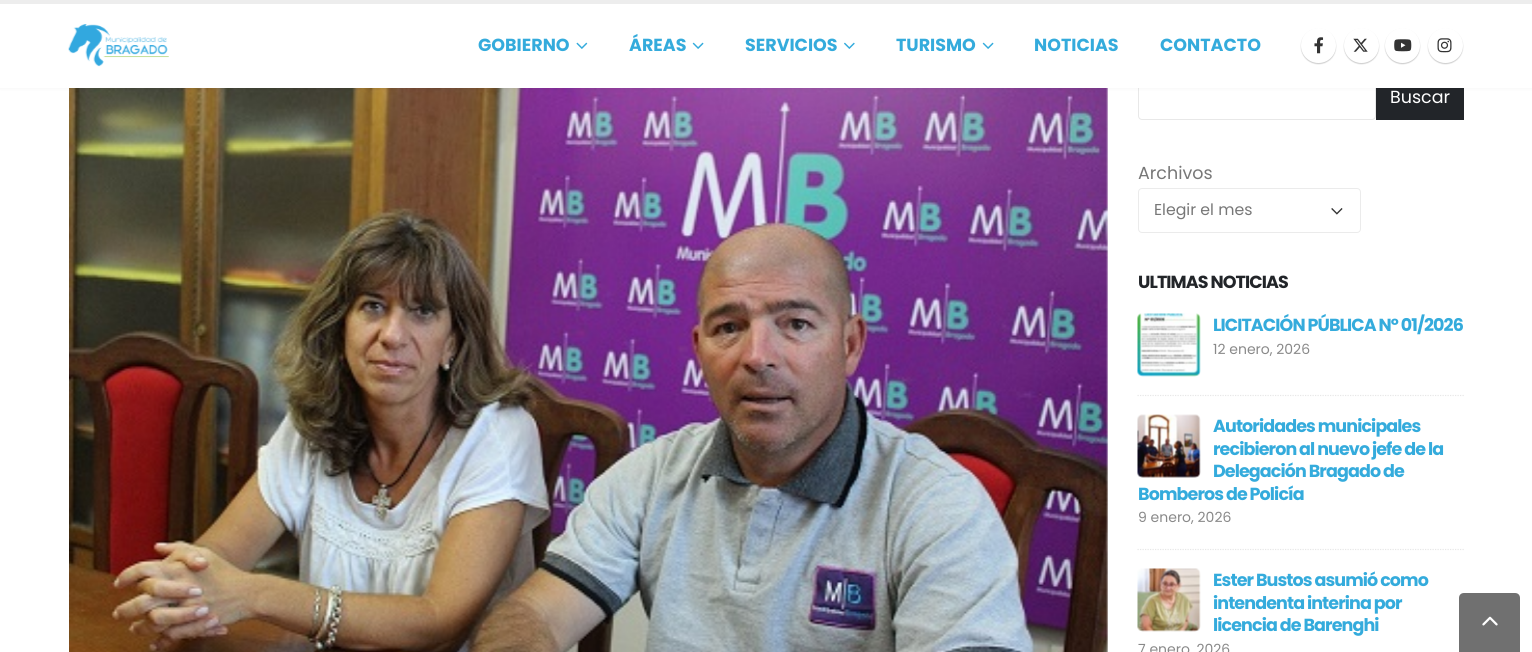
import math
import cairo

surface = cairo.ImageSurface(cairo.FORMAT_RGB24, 1532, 652)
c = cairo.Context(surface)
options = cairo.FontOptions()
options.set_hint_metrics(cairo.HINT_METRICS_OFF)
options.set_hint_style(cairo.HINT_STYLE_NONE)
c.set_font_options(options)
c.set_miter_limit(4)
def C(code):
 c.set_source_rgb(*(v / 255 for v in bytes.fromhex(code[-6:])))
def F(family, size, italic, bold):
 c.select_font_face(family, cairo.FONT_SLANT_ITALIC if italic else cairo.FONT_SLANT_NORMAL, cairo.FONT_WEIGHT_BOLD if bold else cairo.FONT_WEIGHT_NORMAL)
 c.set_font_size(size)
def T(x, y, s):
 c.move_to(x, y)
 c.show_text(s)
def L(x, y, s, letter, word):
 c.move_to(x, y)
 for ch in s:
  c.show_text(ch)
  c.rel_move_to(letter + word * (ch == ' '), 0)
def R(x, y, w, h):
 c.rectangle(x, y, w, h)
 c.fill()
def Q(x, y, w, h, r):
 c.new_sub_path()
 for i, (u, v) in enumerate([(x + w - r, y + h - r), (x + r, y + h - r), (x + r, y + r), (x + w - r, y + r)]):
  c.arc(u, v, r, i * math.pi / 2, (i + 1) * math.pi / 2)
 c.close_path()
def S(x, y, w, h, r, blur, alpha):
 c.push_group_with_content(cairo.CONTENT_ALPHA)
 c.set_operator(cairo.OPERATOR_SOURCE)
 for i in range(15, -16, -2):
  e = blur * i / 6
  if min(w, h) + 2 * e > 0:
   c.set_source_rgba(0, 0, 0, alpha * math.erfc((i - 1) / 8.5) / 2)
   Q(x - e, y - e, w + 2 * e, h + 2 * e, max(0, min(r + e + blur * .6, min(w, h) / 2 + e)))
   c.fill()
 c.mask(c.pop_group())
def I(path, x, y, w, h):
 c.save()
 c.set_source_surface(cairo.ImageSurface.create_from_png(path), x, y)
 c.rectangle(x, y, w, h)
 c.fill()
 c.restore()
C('ffffff')
c.paint()
I('9.png',69,88,1039,564)
Q(1138.5,73.5,237,46,3.5)
C('e8e8e8')
c.set_line_width(1)
c.stroke()
C('222529')
R(1376,88,88,32)
C('000000')
S(0,0,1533,88,0,2,.06)
C('ffffff')
R(0,4,1532,84)
C('ededed')
R(0,0,1532,4)
I('1.png',68,24,101,43)
F('Poppins',17.5,0,1)
C('34abdc')
T(478,51,'GOBIERNO')
I('2.png',576,42,12,7)
T(629,51,'ÁREAS')
I('3.png',692,42,12,7)
T(745,51,'SERVICIOS')
I('4.png',844,42,11,7)
T(896,51,'TURISMO')
I('3.png',982,42,12,7)
T(1034,51,'NOTICIAS')
T(1160,51,'CONTACTO')
C('000000')
S(1301,29,35,35,17.5,.5,.2)
C('ffffff')
c.arc(1318.5,45.5,17.5,0,2 * math.pi)
c.fill()
I('5.png',1314,37,10,17)
C('000000')
S(1344,29,35,35,17.5,.5,.2)
C('ffffff')
c.arc(1361.5,45.5,17.5,0,2 * math.pi)
c.fill()
I('6.png',1353,38,15,14)
C('000000')
S(1385,29,35,35,17.5,.5,.2)
C('ffffff')
c.arc(1402.5,45.5,17.5,0,2 * math.pi)
c.fill()
I('7.png',1394,39,18,13)
C('000000')
S(1428,29,35,35,17.5,.5,.2)
C('ffffff')
c.arc(1445.5,45.5,17.5,0,2 * math.pi)
c.fill()
I('8.png',1437,38,15,15)
F('Poppins',17.5,0,0)
T(1390,103,'Buscar')
C('777777')
T(1138,179,'Archivos')
I('10.png',1331,208,12,7)
Q(1138.5,188.5,222,44,3.5)
C('ebebeb')
c.stroke()
F('Poppins',15.75,0,0)
C('777777')
T(1154,215,'Elegir el mes')
F('Poppins',17.5,0,1)
C('222529')
L(1138,288,'ULTIMAS NOTICIAS',-.9,0)
I('11.png',1137,313,64,64)
C('34abdc')
L(1213,331,'LICITACIÓN PÚBLICA Nº 01/2026',-.9,0)
F('Poppins',14,0,0)
C('898989')
T(1213,354,'12 enero, 2026')
c.new_path()
c.move_to(1137.5,395.5)
c.line_to(1464,395.5)
C('e7e7e7')
c.set_line_width(1.2)
c.set_dash([1.25,1.25])
c.stroke()
I('12.png',1137,414,64,64)
F('Poppins',17.5,0,1)
C('34abdc')
L(1213,432,'Autoridades municipales',-.9,0)
L(1213,455,'recibieron al nuevo jefe de la',-.9,0)
L(1213,477,'Delegación Bragado de',-.9,0)
L(1138,500,'Bomberos de Policía',-.9,0)
F('Poppins',14,0,0)
C('898989')
T(1138,522,'9 enero, 2026')
c.new_path()
c.move_to(1137.5,549.5)
c.line_to(1464,549.5)
C('e7e7e7')
c.stroke()
I('13.png',1137,568,64,64)
F('Poppins',17.5,0,1)
C('34abdc')
L(1213,586,'Ester Bustos asumió como',-.9,0)
L(1213,609,'intendenta interina por',-.9,0)
L(1213,631,'licencia de Barenghi',-.9,0)
F('Poppins',14,0,0)
C('898989')
T(1138,654,'7 enero, 2026')
C('707070')
c.new_path()
c.move_to(1464,593)
c.line_to(1515,593)
c.curve_to(1518,593,1520,595,1520,598)
c.line_to(1520,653)
c.line_to(1459,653)
c.line_to(1459,598)
c.curve_to(1459,595,1461,593,1464,593)
c.close_path()
c.fill()
I('14.png',1482,616,16,10)
surface.write_to_png('o.png')
